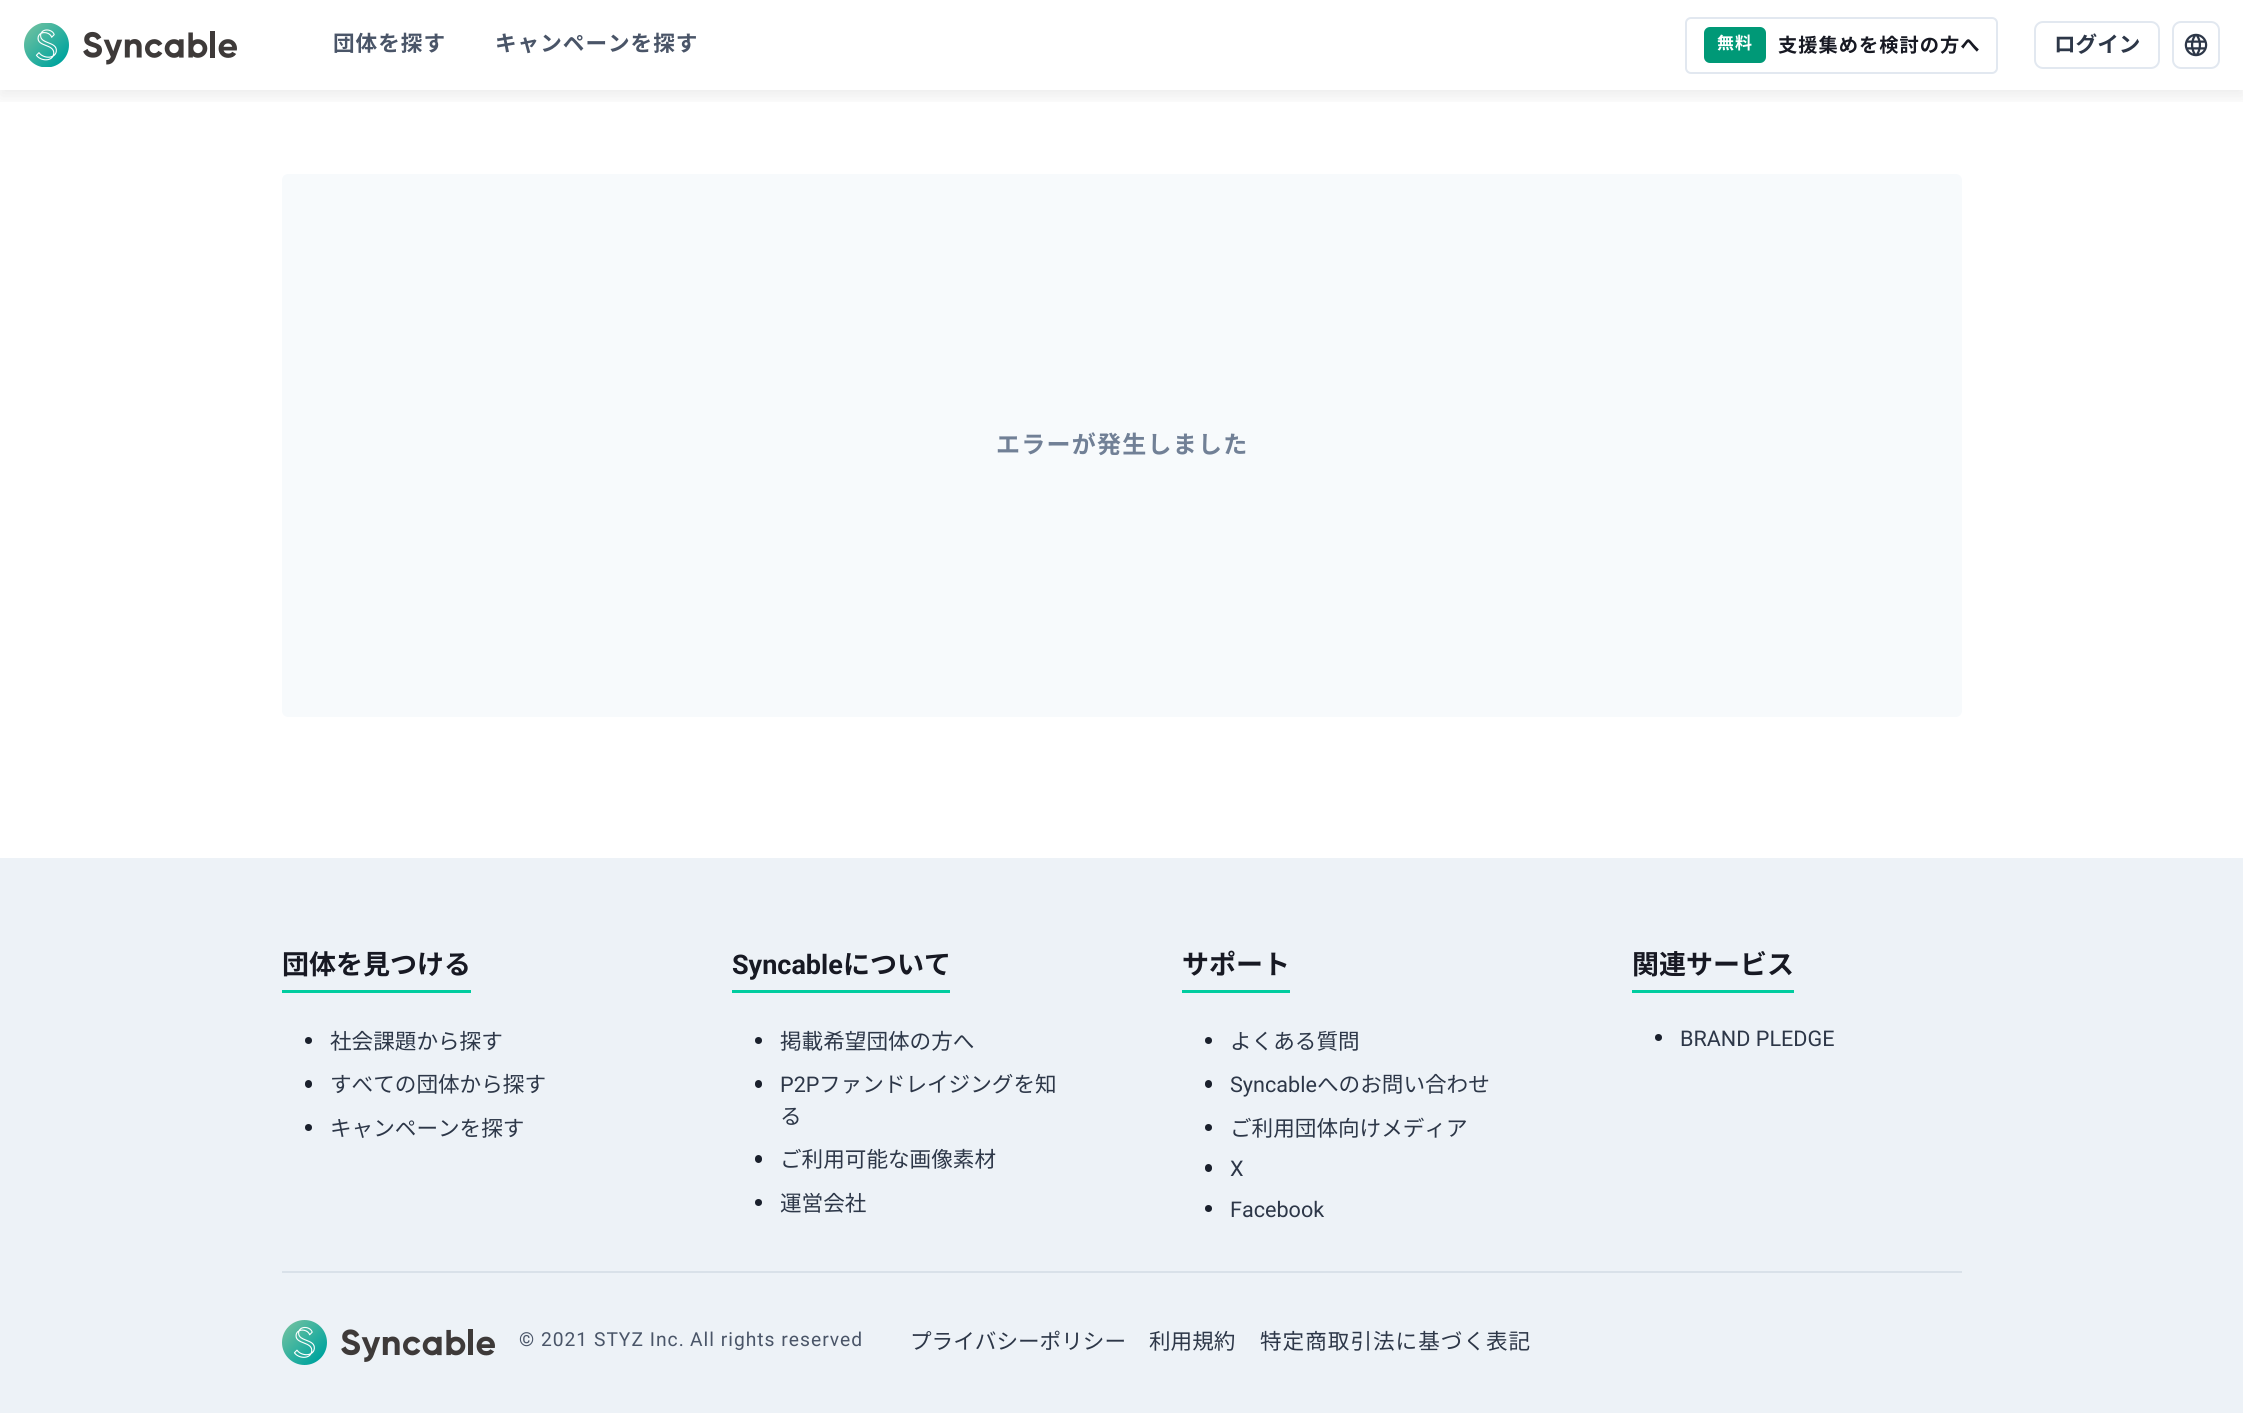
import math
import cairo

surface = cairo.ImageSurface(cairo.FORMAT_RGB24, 2243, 1413)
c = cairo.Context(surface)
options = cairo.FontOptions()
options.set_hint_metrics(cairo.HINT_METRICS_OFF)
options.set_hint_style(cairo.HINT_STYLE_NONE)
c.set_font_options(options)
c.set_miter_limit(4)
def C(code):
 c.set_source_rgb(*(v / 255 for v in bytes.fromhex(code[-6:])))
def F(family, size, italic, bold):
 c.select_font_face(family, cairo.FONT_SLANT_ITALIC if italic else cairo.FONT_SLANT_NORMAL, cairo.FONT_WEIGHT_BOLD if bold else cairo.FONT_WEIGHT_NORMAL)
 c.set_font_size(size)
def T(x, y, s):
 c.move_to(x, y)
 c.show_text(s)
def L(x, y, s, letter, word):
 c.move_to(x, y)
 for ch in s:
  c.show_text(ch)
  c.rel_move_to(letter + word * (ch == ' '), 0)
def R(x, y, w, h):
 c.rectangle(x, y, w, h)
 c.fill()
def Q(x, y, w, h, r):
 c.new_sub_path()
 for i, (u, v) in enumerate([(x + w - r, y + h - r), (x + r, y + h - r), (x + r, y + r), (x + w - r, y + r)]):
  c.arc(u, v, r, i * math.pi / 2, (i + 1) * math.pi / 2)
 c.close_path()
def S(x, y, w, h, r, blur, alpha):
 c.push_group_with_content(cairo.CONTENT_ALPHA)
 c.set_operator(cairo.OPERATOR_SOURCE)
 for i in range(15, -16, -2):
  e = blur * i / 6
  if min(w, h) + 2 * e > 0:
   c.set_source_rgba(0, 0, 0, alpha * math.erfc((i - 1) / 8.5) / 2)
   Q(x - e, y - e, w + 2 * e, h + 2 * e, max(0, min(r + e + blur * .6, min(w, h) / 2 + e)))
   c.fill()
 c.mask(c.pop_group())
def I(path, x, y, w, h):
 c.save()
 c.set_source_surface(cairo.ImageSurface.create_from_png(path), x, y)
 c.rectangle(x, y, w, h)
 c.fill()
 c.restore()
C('ffffff')
c.paint()
c.save()
c.rectangle(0,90,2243,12)
c.clip()
C('000000')
S(0,6,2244,90,0,9,.08)
c.restore()
I('1.png',24,23,213,44)
F('Noto Sans CJK JP',21.6,0,1)
C('4a5568')
L(333,51,'団体を探す',1,0)
L(495,51,'キャンペーンを探す',1,0)
Q(1686,18,311,55,5)
C('e2e8f0')
c.stroke()
C('009977')
Q(1705,28,60,34,5)
c.fill_preserve()
c.stroke()
F('Noto Sans CJK JP',17,0,1)
C('ffffff')
L(1717,49,'無料',1,0)
F('Noto Sans CJK JP',19.25,0,1)
C('171923')
L(1778,52,'支援集めを検討の方へ',1,0)
Q(2035,22,124,46,8)
C('e2e8f0')
c.stroke()
F('Noto Sans CJK JP',21.6,0,1)
C('2d3748')
T(2054,52,'ログイン')
Q(2173,22,46,46,8)
C('e2e8f0')
c.stroke()
I('2.png',2184,33,24,24)
C('f7fafc')
Q(282,174,1680,543,6)
c.fill()
F('Noto Sans CJK JP',24,0,1)
C('718096')
L(996,453,'エラーが発生しました',1.25,0)
C('edf2f7')
R(0,858,2243,555)
C('00cc9f')
R(282,990,189,3)
F('Noto Sans CJK JP',27,0,1)
C('171923')
T(282,974,'団体を見つける')
C('1a202c')
c.new_path()
c.arc(308.5,1040.5,3.5,0,2 * math.pi)
c.fill()
F('Noto Sans CJK JP',21.6,0,0)
C('2d3748')
T(330,1049,'社会課題から探す')
C('1a202c')
Q(305,1080,7,8,3.5)
c.fill()
C('2d3748')
T(330,1092,'すべての団体から探す')
C('1a202c')
c.new_path()
c.arc(308.5,1127.5,3.5,0,2 * math.pi)
c.fill()
C('2d3748')
T(330,1136,'キャンペーンを探す')
C('00cc9f')
R(732,990,218,3)
F('Roboto',27,0,1)
C('171923')
T(732,974,'Syncable')
F('Noto Sans CJK JP',27,0,1)
T(843,974,'について')
C('1a202c')
c.new_path()
c.arc(758.5,1040.5,3.5,0,2 * math.pi)
c.fill()
F('Noto Sans CJK JP',21.6,0,0)
C('2d3748')
T(780,1049,'掲載希望団体の方へ')
C('1a202c')
Q(755,1080,7,8,3.5)
c.fill()
F('Roboto',21.6,0,0)
C('2d3748')
T(780,1092,'P2P')
F('Noto Sans CJK JP',21.6,0,0)
T(819,1092,'ファンドレイジングを知')
T(780,1124,'る')
C('1a202c')
Q(755,1155,7,8,3.5)
c.fill()
C('2d3748')
T(780,1167,'ご利用可能な画像素材')
C('1a202c')
c.new_path()
c.arc(758.5,1202.5,3.5,0,2 * math.pi)
c.fill()
C('2d3748')
T(780,1211,'運営会社')
C('00cc9f')
R(1182,990,108,3)
F('Noto Sans CJK JP',27,0,1)
C('171923')
T(1182,974,'サポート')
C('1a202c')
c.new_path()
c.arc(1208.5,1040.5,3.5,0,2 * math.pi)
c.fill()
F('Noto Sans CJK JP',21.6,0,0)
C('2d3748')
T(1230,1049,'よくある質問')
C('1a202c')
Q(1205,1080,7,8,3.5)
c.fill()
F('Roboto',21.6,0,0)
C('2d3748')
T(1230,1092,'Syncable')
F('Noto Sans CJK JP',21.6,0,0)
T(1317,1092,'へのお問い合わせ')
C('1a202c')
c.new_path()
c.arc(1208.5,1127.5,3.5,0,2 * math.pi)
c.fill()
C('2d3748')
T(1230,1136,'ご利用団体向けメディア')
C('1a202c')
Q(1205,1164,7,8,3.5)
c.fill()
F('Roboto',21.6,0,0)
C('2d3748')
T(1230,1176,'X')
C('1a202c')
c.new_path()
c.arc(1208.5,1208.5,3.5,0,2 * math.pi)
c.fill()
C('2d3748')
T(1230,1217,'Facebook')
C('00cc9f')
R(1632,990,162,3)
F('Noto Sans CJK JP',27,0,1)
C('171923')
T(1632,974,'関連サービス')
C('1a202c')
c.new_path()
c.arc(1658.5,1037.5,3.5,0,2 * math.pi)
c.fill()
F('Roboto',21.6,0,0)
C('2d3748')
T(1680,1046,'BRAND PLEDGE')
C('d9e1e9')
R(282,1271,1680,2)
I('3.png',282,1320,213,45)
F('Roboto',19.25,0,0)
C('4a5568')
L(519,1346,'© 2021 STYZ Inc.',1,0)
L(690,1346,'All rights reserved',1,0)
F('Noto Sans CJK JP',21.6,0,0)
C('2d3748')
T(910,1349,'プライバシーポリシー')
T(1149,1349,'利用規約')
L(1260,1349,'特定商取引法に基づく表記',1,0)
surface.write_to_png('o.png')
